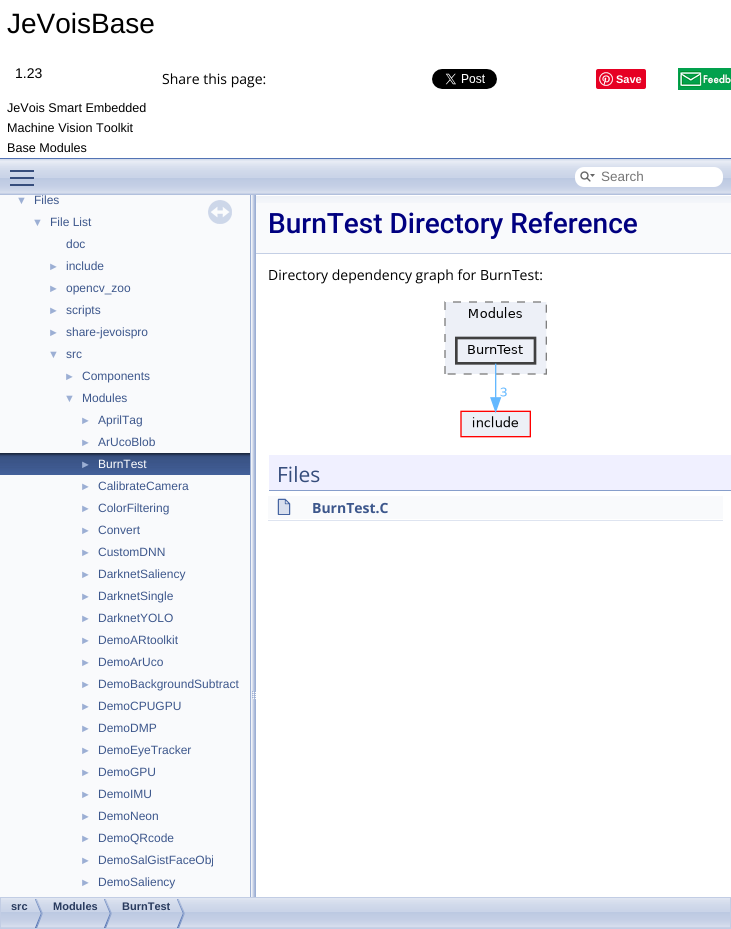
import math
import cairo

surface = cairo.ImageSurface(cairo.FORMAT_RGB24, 731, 929)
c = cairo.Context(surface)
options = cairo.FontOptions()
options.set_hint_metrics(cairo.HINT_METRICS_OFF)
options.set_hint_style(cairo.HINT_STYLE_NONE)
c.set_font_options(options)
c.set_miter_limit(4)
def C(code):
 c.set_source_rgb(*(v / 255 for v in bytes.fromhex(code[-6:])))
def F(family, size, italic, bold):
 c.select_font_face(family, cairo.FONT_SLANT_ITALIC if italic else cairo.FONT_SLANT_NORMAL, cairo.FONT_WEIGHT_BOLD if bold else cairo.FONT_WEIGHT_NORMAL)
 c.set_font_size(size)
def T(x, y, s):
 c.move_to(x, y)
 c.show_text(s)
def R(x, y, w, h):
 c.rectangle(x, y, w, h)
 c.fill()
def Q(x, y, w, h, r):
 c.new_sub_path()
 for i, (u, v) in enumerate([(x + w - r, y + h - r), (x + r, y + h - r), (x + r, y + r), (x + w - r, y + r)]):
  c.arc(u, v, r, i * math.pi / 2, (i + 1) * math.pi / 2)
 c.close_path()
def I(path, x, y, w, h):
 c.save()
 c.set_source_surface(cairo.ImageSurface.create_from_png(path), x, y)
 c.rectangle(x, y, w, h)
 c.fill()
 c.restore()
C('ffffff')
c.paint()
C('5373b4')
R(0,158,731,1)
F('Liberation Sans',28,0,0)
C('000000')
T(7,33,'JeVoisBase')
F('Liberation Sans',14,0,0)
T(15,78,'1.23')
F('Liberation Sans',12.6,0,0)
T(7,112,'JeVois Smart Embedded')
T(7,132,'Machine Vision Toolkit')
T(7,152,'Base Modules')
F('Open Sans',14,0,0)
T(162,84,'Share this page:')
I('1.png',432,69,65,20)
C('e60023')
Q(596,69,50,20,2)
c.fill()
I('2.png',599,72,14,14)
F('Liberation Sans',11,0,1)
C('ffffff')
T(616,83,'Save')
I('3.png',678,68,53,22)
I('4.png',0,159,731,36)
C('364d7c')
R(10,177,24,2)
R(10,170,24,2)
R(10,184,24,2)
C('ffffff')
Q(575,167,148,20,9)
c.fill()
I('5.png',580,171,15,11)
F('Liberation Sans',13.5,0,0)
C('757575')
T(601,181,'Search')
C('f9fafc')
R(0,195,250,702)
F('Liberation Sans',11,0,0)
C('9cafd4')
T(16,204,'▼')
F('Liberation Sans',12,0,0)
C('3d578c')
T(34,204,'Files')
F('Liberation Sans',11,0,0)
C('9cafd4')
T(32,226,'▼')
F('Liberation Sans',12,0,0)
C('3d578c')
T(50,226,'File List')
T(66,248,'doc')
F('Liberation Sans',11,0,0)
C('9cafd4')
T(48,270,'►')
F('Liberation Sans',12,0,0)
C('3d578c')
T(66,270,'include')
F('Liberation Sans',11,0,0)
C('9cafd4')
T(48,292,'►')
F('Liberation Sans',12,0,0)
C('3d578c')
T(66,292,'opencv_zoo')
F('Liberation Sans',11,0,0)
C('9cafd4')
T(48,314,'►')
F('Liberation Sans',12,0,0)
C('3d578c')
T(66,314,'scripts')
F('Liberation Sans',11,0,0)
C('9cafd4')
T(48,336,'►')
F('Liberation Sans',12,0,0)
C('3d578c')
T(66,336,'share-jevoispro')
F('Liberation Sans',11,0,0)
C('9cafd4')
T(48,358,'▼')
F('Liberation Sans',12,0,0)
C('3d578c')
T(66,358,'src')
F('Liberation Sans',11,0,0)
C('9cafd4')
T(64,380,'►')
F('Liberation Sans',12,0,0)
C('3d578c')
T(82,380,'Components')
F('Liberation Sans',11,0,0)
C('9cafd4')
T(64,402,'▼')
F('Liberation Sans',12,0,0)
C('3d578c')
T(82,402,'Modules')
F('Liberation Sans',11,0,0)
C('9cafd4')
T(80,424,'►')
F('Liberation Sans',12,0,0)
C('3d578c')
T(98,424,'AprilTag')
F('Liberation Sans',11,0,0)
C('9cafd4')
T(80,446,'►')
F('Liberation Sans',12,0,0)
C('3d578c')
T(98,446,'ArUcoBlob')
I('6.png',0,453,250,22)
F('Liberation Sans',11,0,0)
C('9cafd4')
T(80,468,'►')
F('Liberation Sans',12,0,0)
C('ffffff')
T(98,468,'BurnTest')
F('Liberation Sans',11,0,0)
C('9cafd4')
T(80,490,'►')
F('Liberation Sans',12,0,0)
C('3d578c')
T(98,490,'CalibrateCamera')
F('Liberation Sans',11,0,0)
C('9cafd4')
T(80,512,'►')
F('Liberation Sans',12,0,0)
C('3d578c')
T(98,512,'ColorFiltering')
F('Liberation Sans',11,0,0)
C('9cafd4')
T(80,534,'►')
F('Liberation Sans',12,0,0)
C('3d578c')
T(98,534,'Convert')
F('Liberation Sans',11,0,0)
C('9cafd4')
T(80,556,'►')
F('Liberation Sans',12,0,0)
C('3d578c')
T(98,556,'CustomDNN')
F('Liberation Sans',11,0,0)
C('9cafd4')
T(80,578,'►')
F('Liberation Sans',12,0,0)
C('3d578c')
T(98,578,'DarknetSaliency')
F('Liberation Sans',11,0,0)
C('9cafd4')
T(80,600,'►')
F('Liberation Sans',12,0,0)
C('3d578c')
T(98,600,'DarknetSingle')
F('Liberation Sans',11,0,0)
C('9cafd4')
T(80,622,'►')
F('Liberation Sans',12,0,0)
C('3d578c')
T(98,622,'DarknetYOLO')
F('Liberation Sans',11,0,0)
C('9cafd4')
T(80,644,'►')
F('Liberation Sans',12,0,0)
C('3d578c')
T(98,644,'DemoARtoolkit')
F('Liberation Sans',11,0,0)
C('9cafd4')
T(80,666,'►')
F('Liberation Sans',12,0,0)
C('3d578c')
T(98,666,'DemoArUco')
F('Liberation Sans',11,0,0)
C('9cafd4')
T(80,688,'►')
F('Liberation Sans',12,0,0)
C('3d578c')
T(98,688,'DemoBackgroundSubtract')
F('Liberation Sans',11,0,0)
C('9cafd4')
T(80,710,'►')
F('Liberation Sans',12,0,0)
C('3d578c')
T(98,710,'DemoCPUGPU')
F('Liberation Sans',11,0,0)
C('9cafd4')
T(80,732,'►')
F('Liberation Sans',12,0,0)
C('3d578c')
T(98,732,'DemoDMP')
F('Liberation Sans',11,0,0)
C('9cafd4')
T(80,754,'►')
F('Liberation Sans',12,0,0)
C('3d578c')
T(98,754,'DemoEyeTracker')
F('Liberation Sans',11,0,0)
C('9cafd4')
T(80,776,'►')
F('Liberation Sans',12,0,0)
C('3d578c')
T(98,776,'DemoGPU')
F('Liberation Sans',11,0,0)
C('9cafd4')
T(80,798,'►')
F('Liberation Sans',12,0,0)
C('3d578c')
T(98,798,'DemoIMU')
F('Liberation Sans',11,0,0)
C('9cafd4')
T(80,820,'►')
F('Liberation Sans',12,0,0)
C('3d578c')
T(98,820,'DemoNeon')
F('Liberation Sans',11,0,0)
C('9cafd4')
T(80,842,'►')
F('Liberation Sans',12,0,0)
C('3d578c')
T(98,842,'DemoQRcode')
F('Liberation Sans',11,0,0)
C('9cafd4')
T(80,864,'►')
F('Liberation Sans',12,0,0)
C('3d578c')
T(98,864,'DemoSalGistFaceObj')
F('Liberation Sans',11,0,0)
C('9cafd4')
T(80,886,'►')
F('Liberation Sans',12,0,0)
C('3d578c')
T(98,886,'DemoSaliency')
I('7.png',208,200,24,24)
I('8.png',250,195,6,702)
C('f9fafc')
R(256,203,475,50)
I('9.png',256,195,475,8)
C('c4cfe5')
R(256,253,475,1)
F('Roboto Medium',28,0,0)
C('000080')
T(268,233,'BurnTest Directory Reference')
F('Open Sans',14,0,0)
C('000000')
T(268,280,'Directory dependency graph for BurnTest:')
I('10.png',444,301,103,137)
C('f0f0ff')
R(269,455,462,35)
C('879ecb')
R(269,490,462,1)
F('Open Sans',21,0,0)
C('354c7b')
T(277,482,'Files')
C('f9fafc')
R(268,496,455,23)
I('11.png',277,498,14,17)
F('Open Sans',14,0,1)
C('3d578c')
T(312,513,'BurnTest.C')
C('dee4f0')
R(268,520,455,1)
I('12.png',1,898,729,30)
c.rectangle(.5,897.5,730,31)
C('c2cde4')
c.set_line_width(1)
c.stroke()
I('13.png',35,899,8,29)
F('Liberation Sans',11,0,1)
C('283a5d')
T(11,910,'src')
I('13.png',104,899,8,29)
T(53,910,'Modules')
I('13.png',177,899,8,29)
T(122,910,'BurnTest')
surface.write_to_png('o.png')
